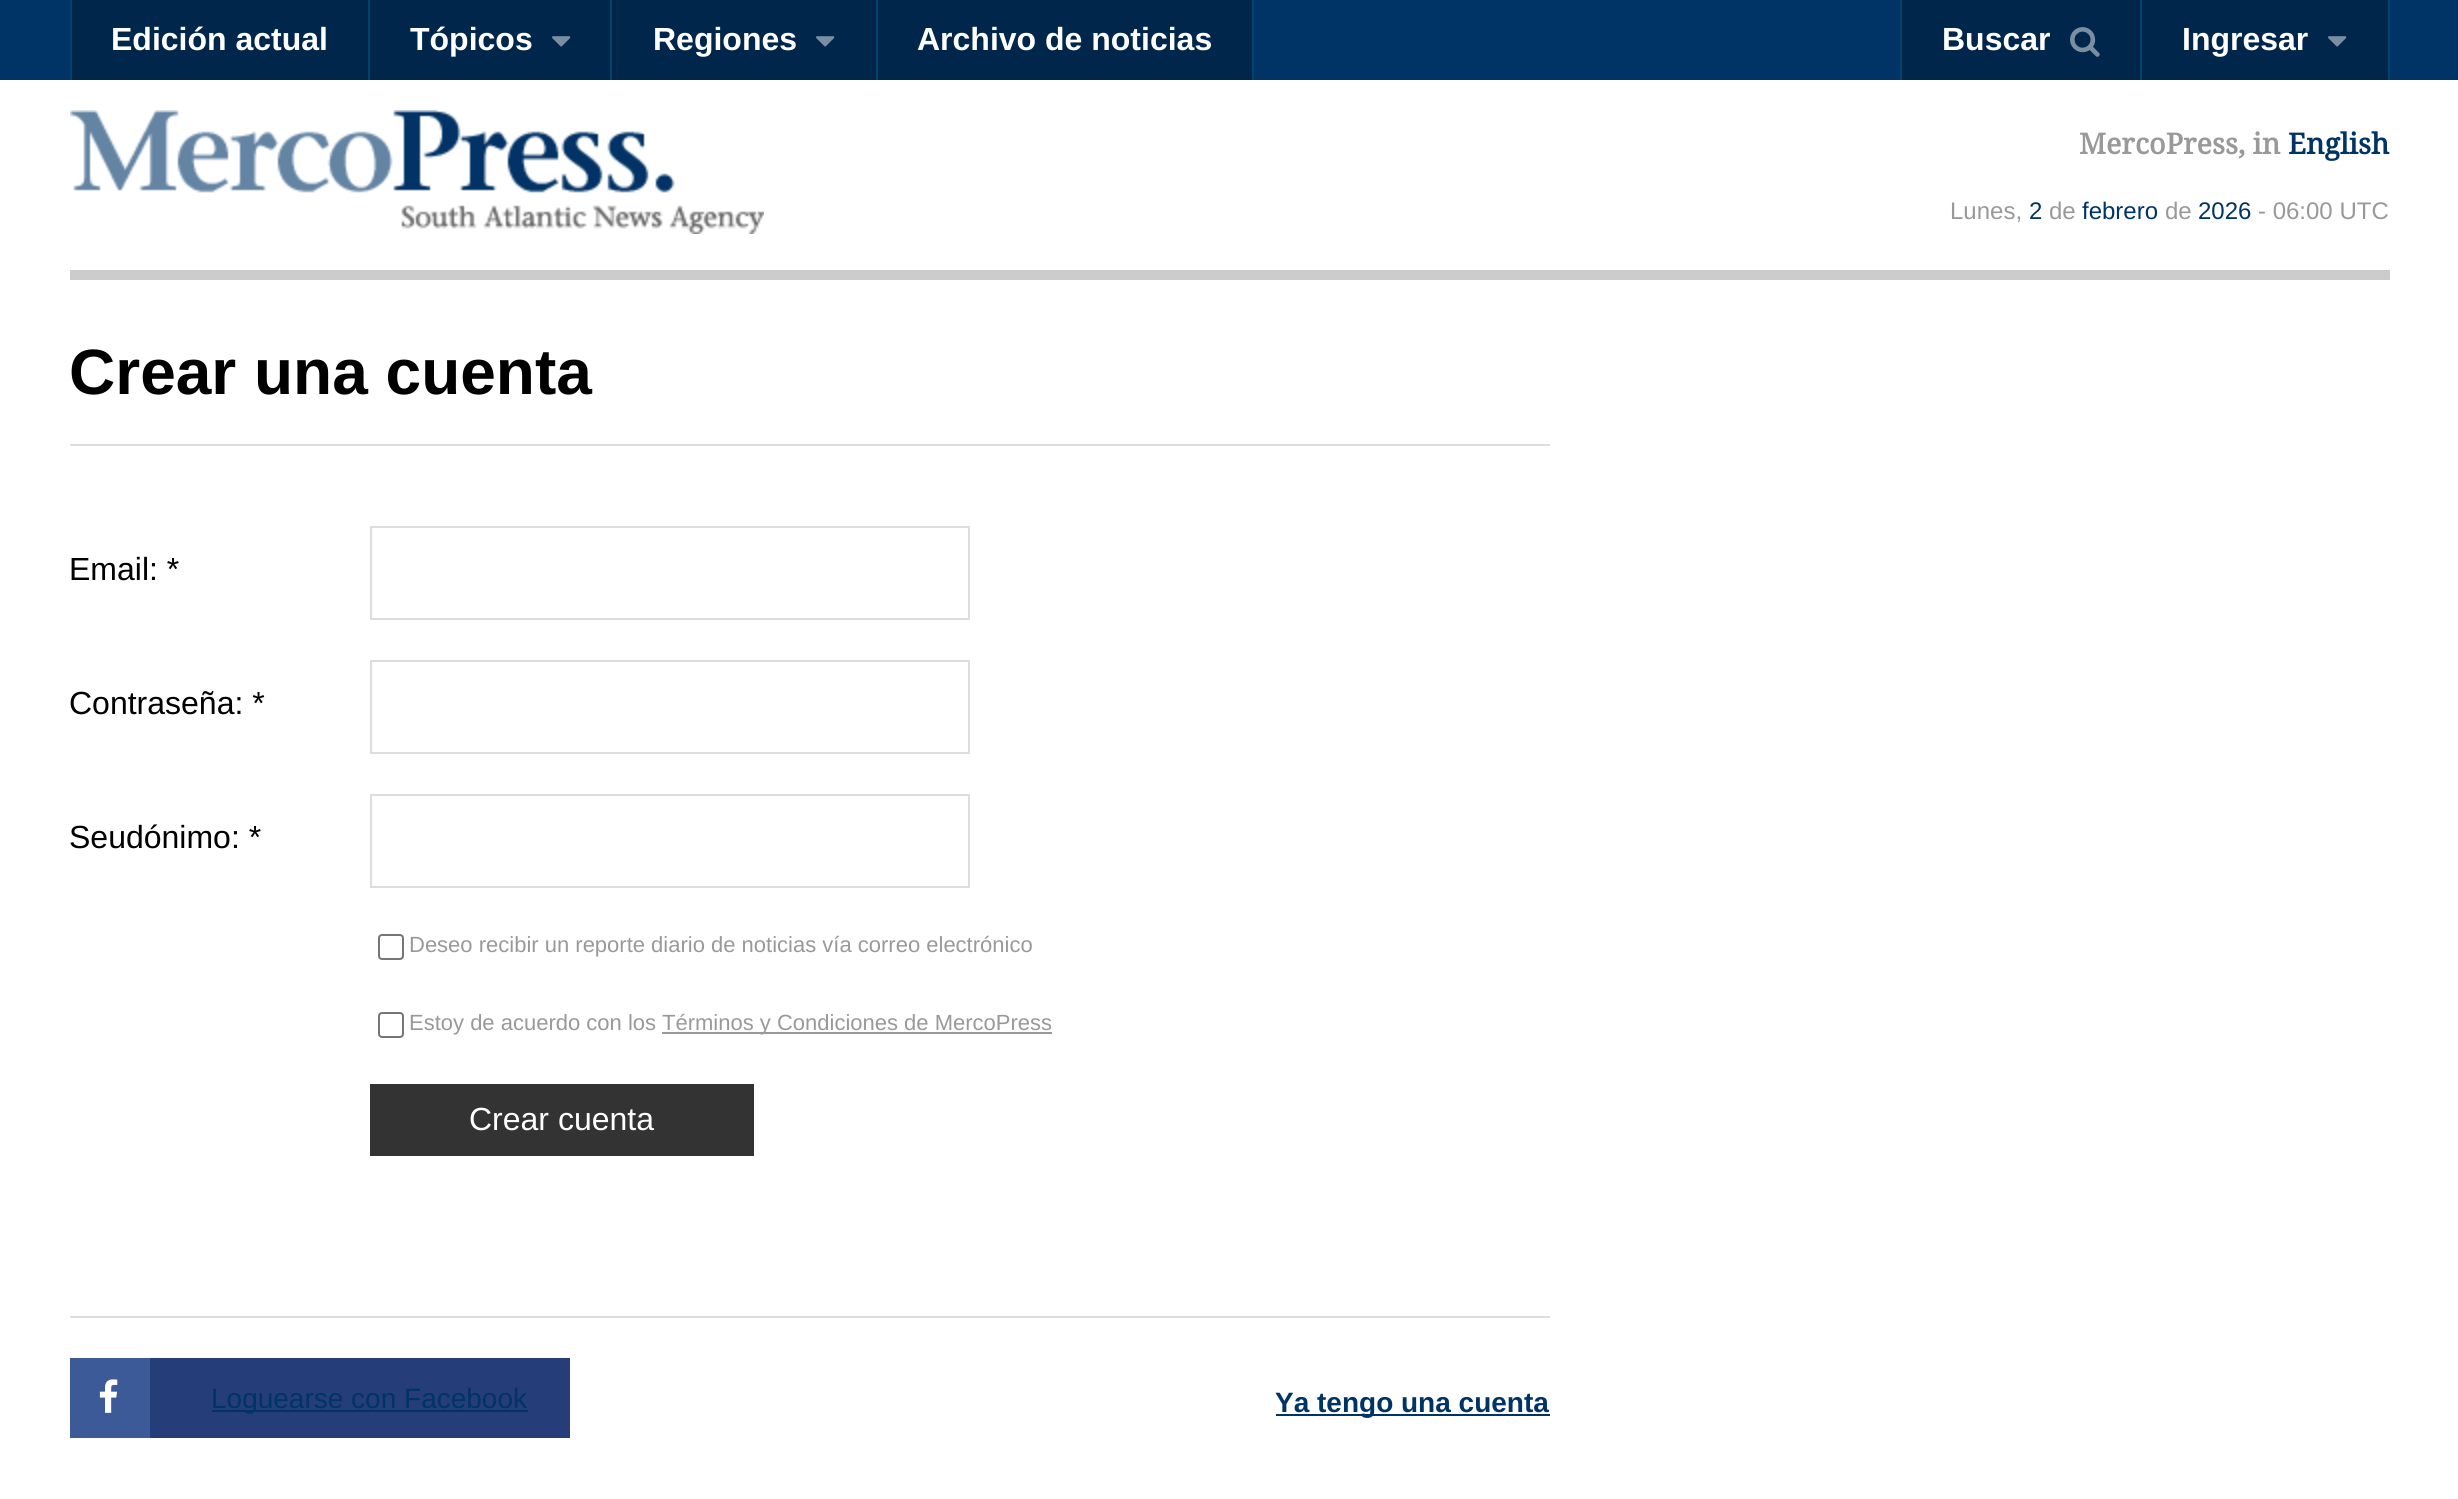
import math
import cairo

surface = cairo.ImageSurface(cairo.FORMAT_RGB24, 2458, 1499)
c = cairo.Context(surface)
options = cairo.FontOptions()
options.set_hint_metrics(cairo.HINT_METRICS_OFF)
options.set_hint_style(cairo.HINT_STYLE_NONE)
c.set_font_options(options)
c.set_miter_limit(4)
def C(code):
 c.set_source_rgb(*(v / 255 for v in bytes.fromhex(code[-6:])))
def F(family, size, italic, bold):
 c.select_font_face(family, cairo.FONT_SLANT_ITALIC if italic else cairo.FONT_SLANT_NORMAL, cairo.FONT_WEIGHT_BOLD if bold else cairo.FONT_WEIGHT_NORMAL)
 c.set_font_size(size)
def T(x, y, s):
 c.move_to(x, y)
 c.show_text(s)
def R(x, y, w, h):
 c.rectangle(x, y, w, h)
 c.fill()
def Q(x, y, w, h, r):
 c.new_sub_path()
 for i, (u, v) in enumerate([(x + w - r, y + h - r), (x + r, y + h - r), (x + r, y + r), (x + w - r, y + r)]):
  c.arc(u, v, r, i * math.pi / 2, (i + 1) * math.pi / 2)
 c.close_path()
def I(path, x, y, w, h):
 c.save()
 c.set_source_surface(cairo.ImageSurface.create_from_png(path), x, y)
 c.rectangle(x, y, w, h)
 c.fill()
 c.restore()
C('ffffff')
c.paint()
C('003366')
R(0,0,2458,80)
C('00264c')
R(72,0,296,80)
C('00446c')
R(368,0,2,80)
R(70,0,2,80)
F('Liberation Sans',32,0,1)
C('ffffff')
T(111,50,'Edición actual')
C('00264c')
R(370,0,240,80)
C('00446c')
R(610,0,2,80)
C('ffffff')
T(410,50,'Tópicos')
I('1.png',552,36,19,11)
C('00264c')
R(612,0,264,80)
C('00446c')
R(876,0,2,80)
C('ffffff')
T(653,50,'Regiones')
I('1.png',816,36,19,11)
C('00264c')
R(878,0,374,80)
C('00446c')
R(1252,0,2,80)
C('ffffff')
T(917,50,'Archivo de noticias')
C('00264c')
R(1902,0,238,80)
C('00446c')
R(2140,0,2,80)
R(1900,0,2,80)
C('ffffff')
T(1942,50,'Buscar')
I('2.png',2070,27,30,30)
C('00264c')
R(2142,0,246,80)
C('00446c')
R(2388,0,2,80)
C('ffffff')
T(2182,50,'Ingresar')
I('1.png',2328,36,19,11)
C('cccccc')
R(70,270,2320,10)
I('3.png',70,110,694,124)
F('Droid Serif',28.75,0,1)
C('999999')
T(2079,154,'MercoPress, in')
C('003366')
T(2288,154,'English')
F('Liberation Sans',24,0,0)
C('999999')
T(1950,219,'Lunes,')
C('003366')
T(2029,219,'2')
C('999999')
T(2049,219,'de')
C('003366')
T(2082,219,'febrero')
C('999999')
T(2165,219,'de')
C('003366')
T(2198,219,'2026')
C('999999')
T(2258,219,'- 06:00 UTC')
C('dddddd')
R(70,444,1480,2)
F('Liberation Sans',64,0,1)
C('000000')
T(69,394,'Crear una cuenta')
F('Liberation Sans',32,0,0)
T(69,580,'Email: *')
c.rectangle(371,527,598,92)
C('dddddd')
c.stroke()
C('000000')
T(69,714,'Contraseña: *')
c.rectangle(371,661,598,92)
C('dddddd')
c.stroke()
C('000000')
T(69,848,'Seudónimo: *')
c.rectangle(371,795,598,92)
C('dddddd')
c.stroke()
Q(379,935,24,24,3)
C('767676')
c.stroke()
F('Liberation Sans',22,0,0)
C('999999')
T(409,952,'Deseo recibir un reporte diario de noticias vía correo electrónico')
Q(379,1013,24,24,3)
C('767676')
c.stroke()
C('999999')
T(409,1030,'Estoy de acuerdo con los')
R(662,1032,390,2)
T(662,1030,'Términos y Condiciones de MercoPress')
C('333333')
R(370,1084,384,72)
F('Liberation Sans',32,0,0)
C('ffffff')
T(469,1130,'Crear cuenta')
C('dddddd')
R(70,1316,1480,2)
C('253d79')
R(150,1358,420,80)
C('3c5a98')
R(70,1358,80,80)
I('4.png',99,1379,19,34)
C('003366')
R(212,1410,316,2)
F('Liberation Sans',28,0,0)
T(211,1408,'Loguearse con Facebook')
R(1276,1414,274,2)
F('Liberation Sans',28,0,1)
T(1275,1412,'Ya tengo una cuenta')
surface.write_to_png('o.png')
